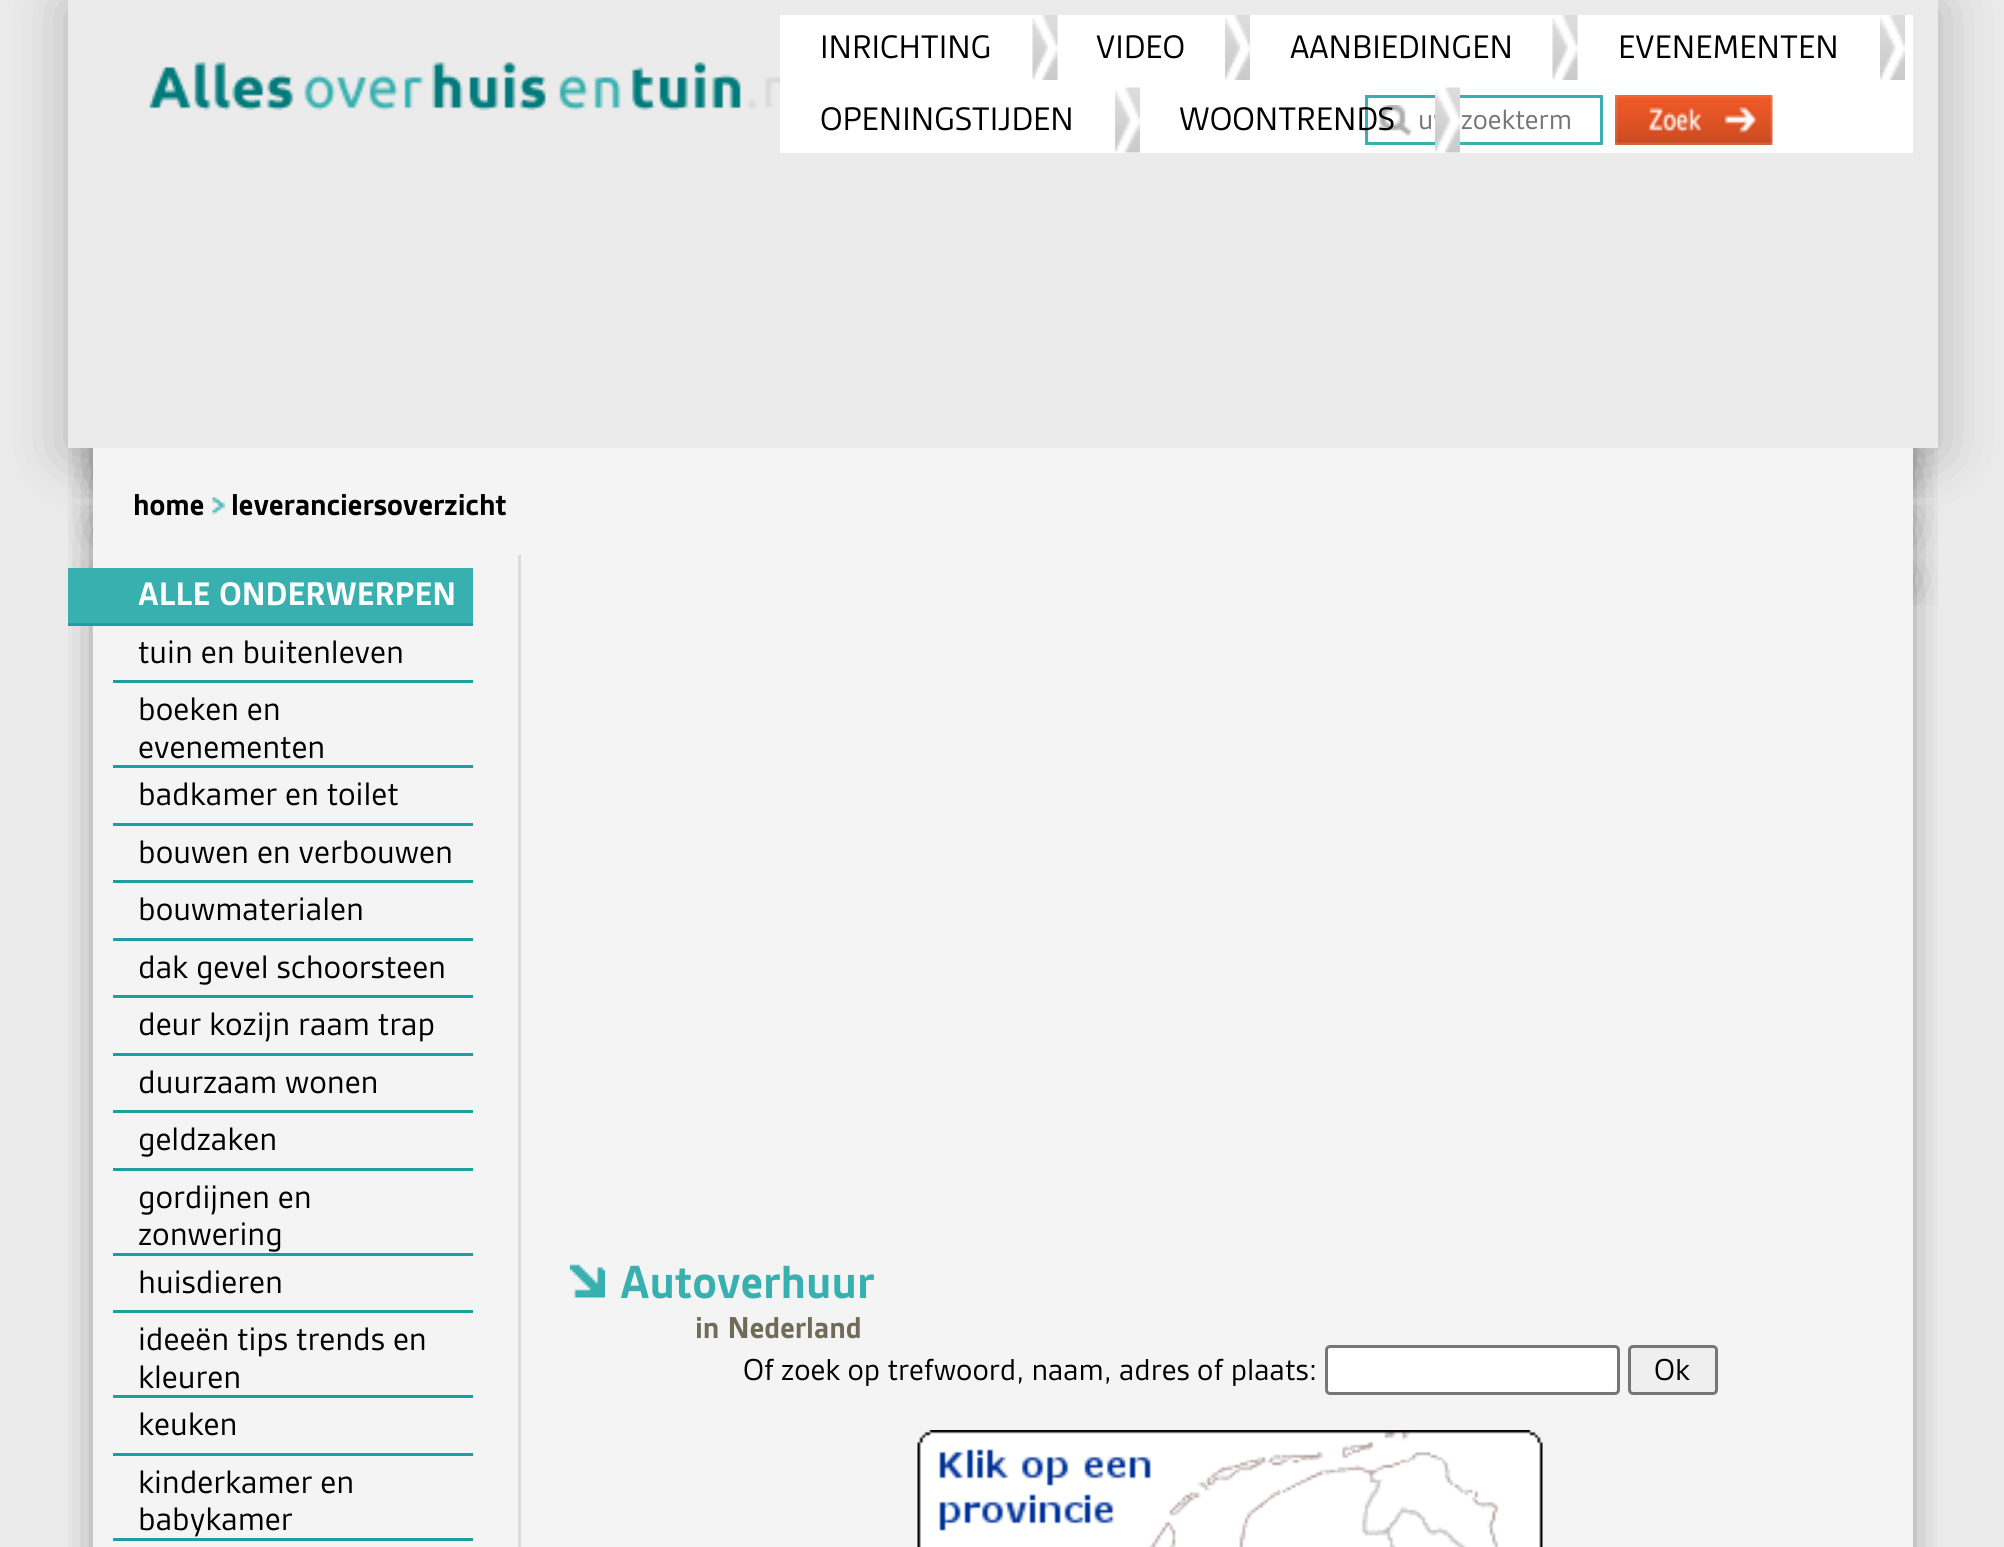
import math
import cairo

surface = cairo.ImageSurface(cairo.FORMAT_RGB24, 2004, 1547)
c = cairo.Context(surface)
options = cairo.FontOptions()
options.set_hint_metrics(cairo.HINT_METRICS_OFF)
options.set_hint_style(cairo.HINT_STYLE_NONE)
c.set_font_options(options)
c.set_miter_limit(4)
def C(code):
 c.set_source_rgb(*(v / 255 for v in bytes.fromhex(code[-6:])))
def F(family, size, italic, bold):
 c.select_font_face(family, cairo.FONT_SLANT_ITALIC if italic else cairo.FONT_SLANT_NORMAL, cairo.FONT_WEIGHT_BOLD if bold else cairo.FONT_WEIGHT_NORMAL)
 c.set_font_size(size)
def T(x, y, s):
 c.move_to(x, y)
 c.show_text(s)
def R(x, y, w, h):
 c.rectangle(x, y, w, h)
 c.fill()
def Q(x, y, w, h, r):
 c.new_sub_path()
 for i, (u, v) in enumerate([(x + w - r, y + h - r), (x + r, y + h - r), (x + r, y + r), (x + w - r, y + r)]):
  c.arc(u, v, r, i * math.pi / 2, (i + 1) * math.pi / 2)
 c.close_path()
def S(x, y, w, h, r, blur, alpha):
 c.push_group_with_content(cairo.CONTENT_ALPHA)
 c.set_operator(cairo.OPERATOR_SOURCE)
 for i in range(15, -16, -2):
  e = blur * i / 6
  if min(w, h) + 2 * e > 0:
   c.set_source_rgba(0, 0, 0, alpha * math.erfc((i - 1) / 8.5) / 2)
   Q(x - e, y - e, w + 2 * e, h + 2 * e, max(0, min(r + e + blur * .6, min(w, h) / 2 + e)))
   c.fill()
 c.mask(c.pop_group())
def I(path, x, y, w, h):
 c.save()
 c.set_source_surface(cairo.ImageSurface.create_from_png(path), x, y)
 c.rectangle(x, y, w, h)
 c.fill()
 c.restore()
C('ebebeb')
c.paint()
c.save()
c.set_fill_rule(cairo.FILL_RULE_EVEN_ODD)
c.new_path()
c.move_to(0,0)
c.line_to(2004,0)
c.line_to(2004,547)
c.line_to(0,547)
c.close_path()
c.move_to(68,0)
c.line_to(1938,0)
c.line_to(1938,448)
c.line_to(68,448)
c.close_path()
c.clip()
C('000000')
S(68,5,1870,448,0,31,.25)
c.restore()
I('1.png',149,61,631,50)
C('ffffff')
R(780,15,1133,138)
I('2.png',1032,15,26,65)
F('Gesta',35,0,0)
C('000000')
T(820,58,'INRICHTING')
I('3.png',1225,15,25,65)
T(1096,58,'VIDEO')
I('4.png',1552,15,26,65)
T(1290,58,'AANBIEDINGEN')
I('3.png',1880,15,25,65)
T(1618,58,'EVENEMENTEN')
I('5.png',1115,87,25,66)
T(820,130,'OPENINGSTIJDEN')
I('7.png',1379,105,34,31)
c.rectangle(1366.5,96.5,235,47)
C('38b0b0')
c.set_line_width(3)
c.stroke()
F('Gesta',30,0,0)
C('757575')
T(1418,129,'uw zoekterm')
I('6.png',1435,87,25,66)
F('Gesta',35,0,0)
C('000000')
T(1179,130,'WOONTRENDS')
I('8.png',1615,95,158,50)
c.save()
c.rectangle(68,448,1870,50)
c.clip()
C('000000')
S(118,423,1770,50,0,25,1)
c.restore()
c.save()
c.rectangle(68,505,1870,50)
c.clip()
C('000000')
S(118,530,1770,50,0,25,1)
c.restore()
c.save()
c.rectangle(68,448,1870,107)
c.clip()
C('000000')
S(118,473,1770,57,0,25,1)
c.restore()
C('f4f4f4')
R(93,448,1820,107)
F('Gesta',32.5,0,1)
C('000000')
T(133,515,'home')
I('9.png',212,497,13,18)
T(231,515,'leveranciersoverzicht')
c.save()
c.rectangle(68,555,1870,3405)
c.clip()
C('000000')
S(118,580,1770,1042,0,25,1)
c.restore()
C('f4f4f4')
R(93,555,1820,992)
C('dcdcdc')
R(518,555,3,992)
c.save()
c.rectangle(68,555,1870,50)
c.clip()
c.set_fill_rule(cairo.FILL_RULE_EVEN_ODD)
c.new_path()
c.move_to(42,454)
c.line_to(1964,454)
c.line_to(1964,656)
c.line_to(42,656)
c.close_path()
c.move_to(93,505)
c.line_to(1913,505)
c.line_to(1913,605)
c.line_to(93,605)
c.close_path()
c.clip()
C('000000')
S(118,530,1770,50,0,25,1)
c.restore()
C('38b0b0')
R(68,568,405,55)
C('1c9f9e')
R(68,623,405,3)
F('Gesta',35,0,1)
C('ffffff')
T(138,605,'ALLE ONDERWERPEN')
C('1c9f9e')
R(113,680,360,3)
F('Gesta',35,0,0)
C('000000')
T(138,663,'tuin en buitenleven')
C('1c9f9e')
R(113,765,360,3)
C('000000')
T(138,720,'boeken en')
T(138,758,'evenementen')
C('1c9f9e')
R(113,823,360,3)
C('000000')
T(138,805,'badkamer en toilet')
C('1c9f9e')
R(113,880,360,3)
C('000000')
T(138,863,'bouwen en verbouwen')
C('1c9f9e')
R(113,938,360,3)
C('000000')
T(138,920,'bouwmaterialen')
C('1c9f9e')
R(113,995,360,3)
C('000000')
T(138,978,'dak gevel schoorsteen')
C('1c9f9e')
R(113,1053,360,3)
C('000000')
T(138,1035,'deur kozijn raam trap')
C('1c9f9e')
R(113,1110,360,3)
C('000000')
T(138,1093,'duurzaam wonen')
C('1c9f9e')
R(113,1168,360,3)
C('000000')
T(138,1150,'geldzaken')
C('1c9f9e')
R(113,1253,360,3)
C('000000')
T(138,1208,'gordijnen en')
T(138,1245,'zonwering')
C('1c9f9e')
R(113,1310,360,3)
C('000000')
T(138,1293,'huisdieren')
C('1c9f9e')
R(113,1395,360,3)
C('000000')
T(138,1350,'ideeën tips trends en')
T(138,1388,'kleuren')
C('1c9f9e')
R(113,1453,360,3)
C('000000')
T(138,1435,'keuken')
C('1c9f9e')
R(113,1538,360,3)
C('000000')
T(138,1493,'kinderkamer en')
T(138,1530,'babykamer')
I('10.png',570,1264,35,34)
F('Gesta',50,0,1)
C('38b0b0')
T(620,1298,'Autoverhuur')
F('Gesta',32.5,0,1)
C('706c58')
T(695,1338,'in Nederland')
F('Gesta',32.5,0,0)
C('000000')
T(743,1380,'Of zoek op trefwoord, naam, adres of plaats:')
C('ffffff')
Q(1326.5,1346.5,292,47,3.5)
c.fill_preserve()
C('767676')
c.stroke()
C('efefef')
Q(1629.5,1346.5,87,47,3.5)
c.fill_preserve()
C('767676')
c.stroke()
C('000000')
T(1654,1380,'Ok')
I('11.png',917,1430,626,117)
surface.write_to_png('o.png')
